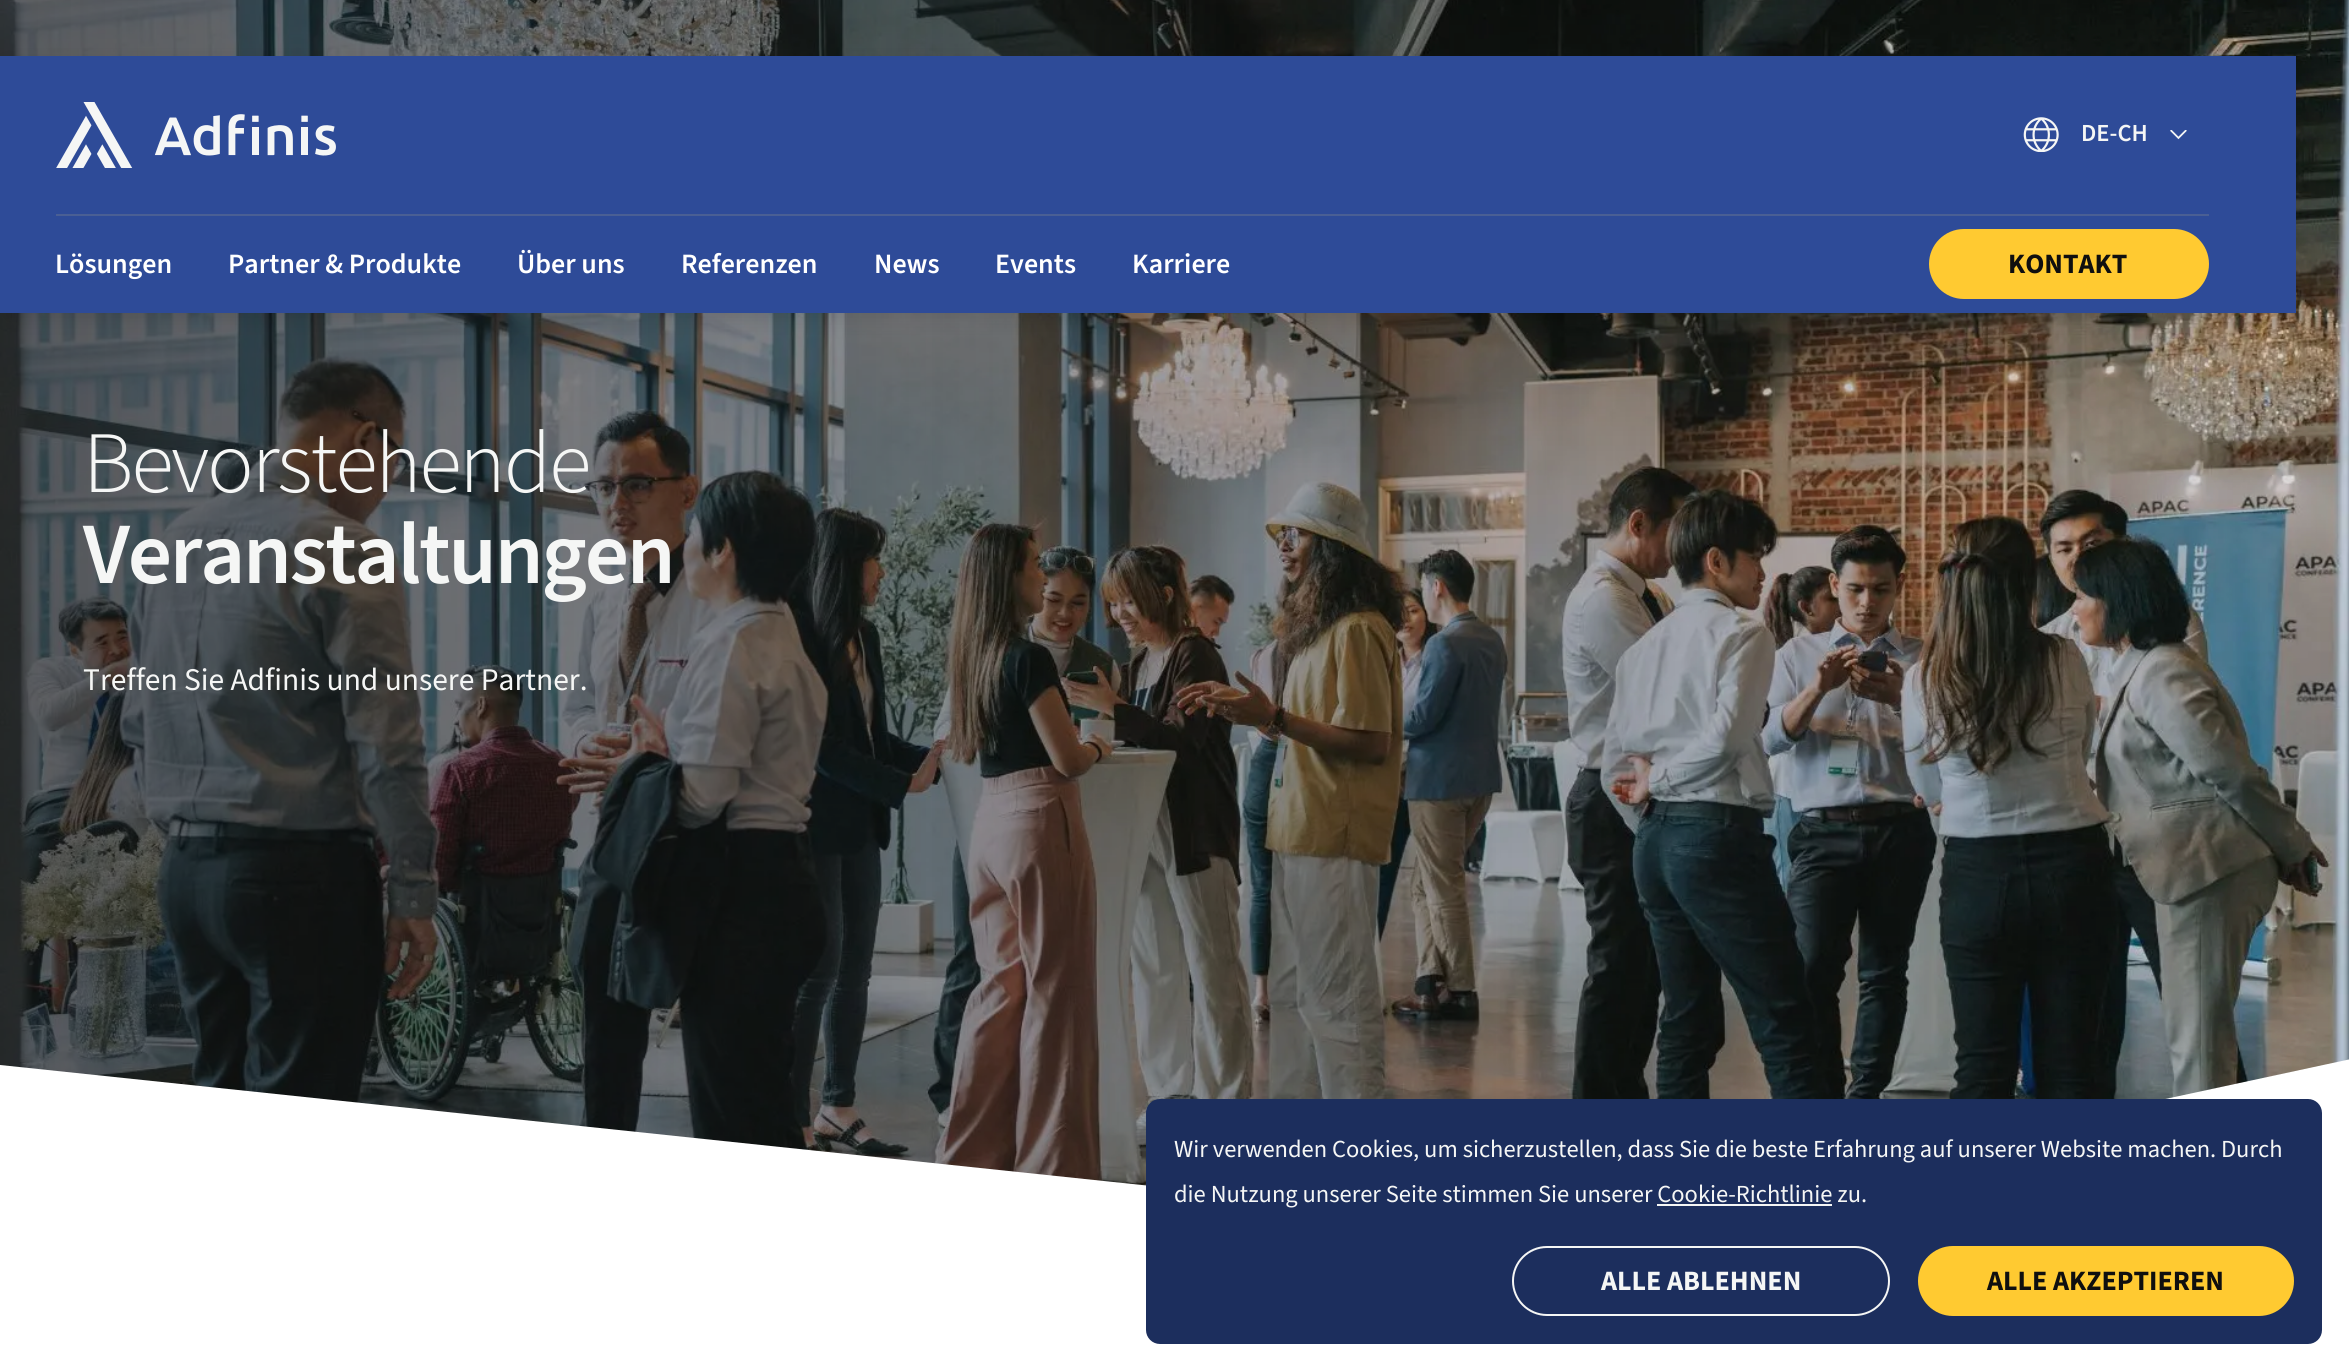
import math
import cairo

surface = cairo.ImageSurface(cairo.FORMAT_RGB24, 2349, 1371)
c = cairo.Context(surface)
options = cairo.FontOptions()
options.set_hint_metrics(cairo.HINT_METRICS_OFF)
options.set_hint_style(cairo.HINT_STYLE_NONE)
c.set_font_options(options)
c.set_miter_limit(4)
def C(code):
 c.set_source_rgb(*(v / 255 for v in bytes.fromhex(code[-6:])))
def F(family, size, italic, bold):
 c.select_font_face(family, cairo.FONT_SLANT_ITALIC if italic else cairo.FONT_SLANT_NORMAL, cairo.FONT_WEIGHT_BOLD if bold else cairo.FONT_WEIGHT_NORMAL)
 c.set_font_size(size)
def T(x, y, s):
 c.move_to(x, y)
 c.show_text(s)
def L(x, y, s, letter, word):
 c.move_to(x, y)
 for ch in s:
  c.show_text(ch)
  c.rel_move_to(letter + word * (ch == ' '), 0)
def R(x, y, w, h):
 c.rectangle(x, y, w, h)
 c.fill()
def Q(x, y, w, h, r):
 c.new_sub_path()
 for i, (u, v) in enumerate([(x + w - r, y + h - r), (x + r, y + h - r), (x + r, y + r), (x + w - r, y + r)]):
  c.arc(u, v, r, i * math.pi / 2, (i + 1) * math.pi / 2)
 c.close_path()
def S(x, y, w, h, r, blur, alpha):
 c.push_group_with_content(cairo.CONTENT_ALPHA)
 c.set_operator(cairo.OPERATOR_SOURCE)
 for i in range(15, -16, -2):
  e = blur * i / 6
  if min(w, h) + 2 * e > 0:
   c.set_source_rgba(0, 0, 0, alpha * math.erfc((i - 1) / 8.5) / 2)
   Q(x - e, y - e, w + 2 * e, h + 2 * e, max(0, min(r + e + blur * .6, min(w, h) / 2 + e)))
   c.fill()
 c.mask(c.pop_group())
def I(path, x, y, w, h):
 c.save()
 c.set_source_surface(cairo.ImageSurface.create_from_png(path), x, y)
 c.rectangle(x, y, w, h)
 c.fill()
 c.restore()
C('ffffff')
c.paint()
I('4.png',0,0,2349,1186)
gradient = cairo.LinearGradient(0,656,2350,656)
gradient.add_color_stop_rgba(0,0.059,0.059,0.059,.65)
gradient.add_color_stop_rgba(1,0.059,0.059,0.059,.1)
c.set_source(gradient)
R(0,0,2349,1186)
C('000000')
S(4,63,2296,257,0,10.5,.1)
C('2e4b98')
R(0,56,2296,257)
I('1.png',56,102,280,66)
I('2.png',2023,117,36,35)
F('Source Sans 3 SemiBold',24.5,0,0)
C('f5f6f5')
T(2081,141,'DE-CH')
I('3.png',2170,130,17,10)
C('4a5f94')
R(56,214,2153,2)
F('Source Sans 3 SemiBold',28,0,0)
C('ffffff')
T(55,273,'Lösungen')
T(228,273,'Partner & Produkte')
T(517,273,'Über uns')
T(681,273,'Referenzen')
T(874,273,'News')
T(995,273,'Events')
T(1132,273,'Karriere')
C('ffca31')
Q(1929,229,280,70,35)
c.fill()
F('Source Sans 3',28,0,1)
C('0f0f0f')
T(2008,273,'KONTAKT')
F('Source Sans 3 Light',87.5,0,0)
C('f5f6f5')
L(83,492,'Bevorstehende',-2.25,0)
F('Source Sans 3 SemiBold',87.5,0,0)
L(83,583,'Veranstaltungen',-2.25,0)
F('Source Sans 3',31.5,0,0)
T(83,690,'Treffen Sie Adfinis und unsere Partner.')
C('ffffff')
c.set_fill_rule(cairo.FILL_RULE_EVEN_ODD)
c.new_path()
c.move_to(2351,1312)
c.line_to(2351,1059)
c.line_to(1176,1312)
c.close_path()
c.fill()
c.save()
c.set_fill_rule(cairo.FILL_RULE_WINDING)
c.rectangle(0,0,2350,1313)
c.clip()
c.new_path()
c.move_to(0,1065)
c.line_to(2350,1312)
c.line_to(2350,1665)
c.line_to(0,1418)
c.close_path()
c.fill()
c.restore()
C('1c2e5d')
Q(1146,1099,1176,245,14)
c.fill()
F('Source Sans 3',24.5,0,0)
C('f5f6f5')
T(1174,1157,'Wir verwenden Cookies, um sicherzustellen, dass Sie die beste Erfahrung auf unserer Website machen. Durch')
T(1174,1202,'die Nutzung unserer Seite stimmen Sie unserer Cookie-Richtlinie zu.')
R(1657,1204,175,2)
Q(1513,1247,376,68,34)
c.stroke()
F('Source Sans 3',28,0,1)
T(1601,1290,'ALLE ABLEHNEN')
C('ffca31')
Q(1918,1246,376,70,35)
c.fill()
C('0f0f0f')
T(1987,1290,'ALLE AKZEPTIEREN')
surface.write_to_png('o.png')
